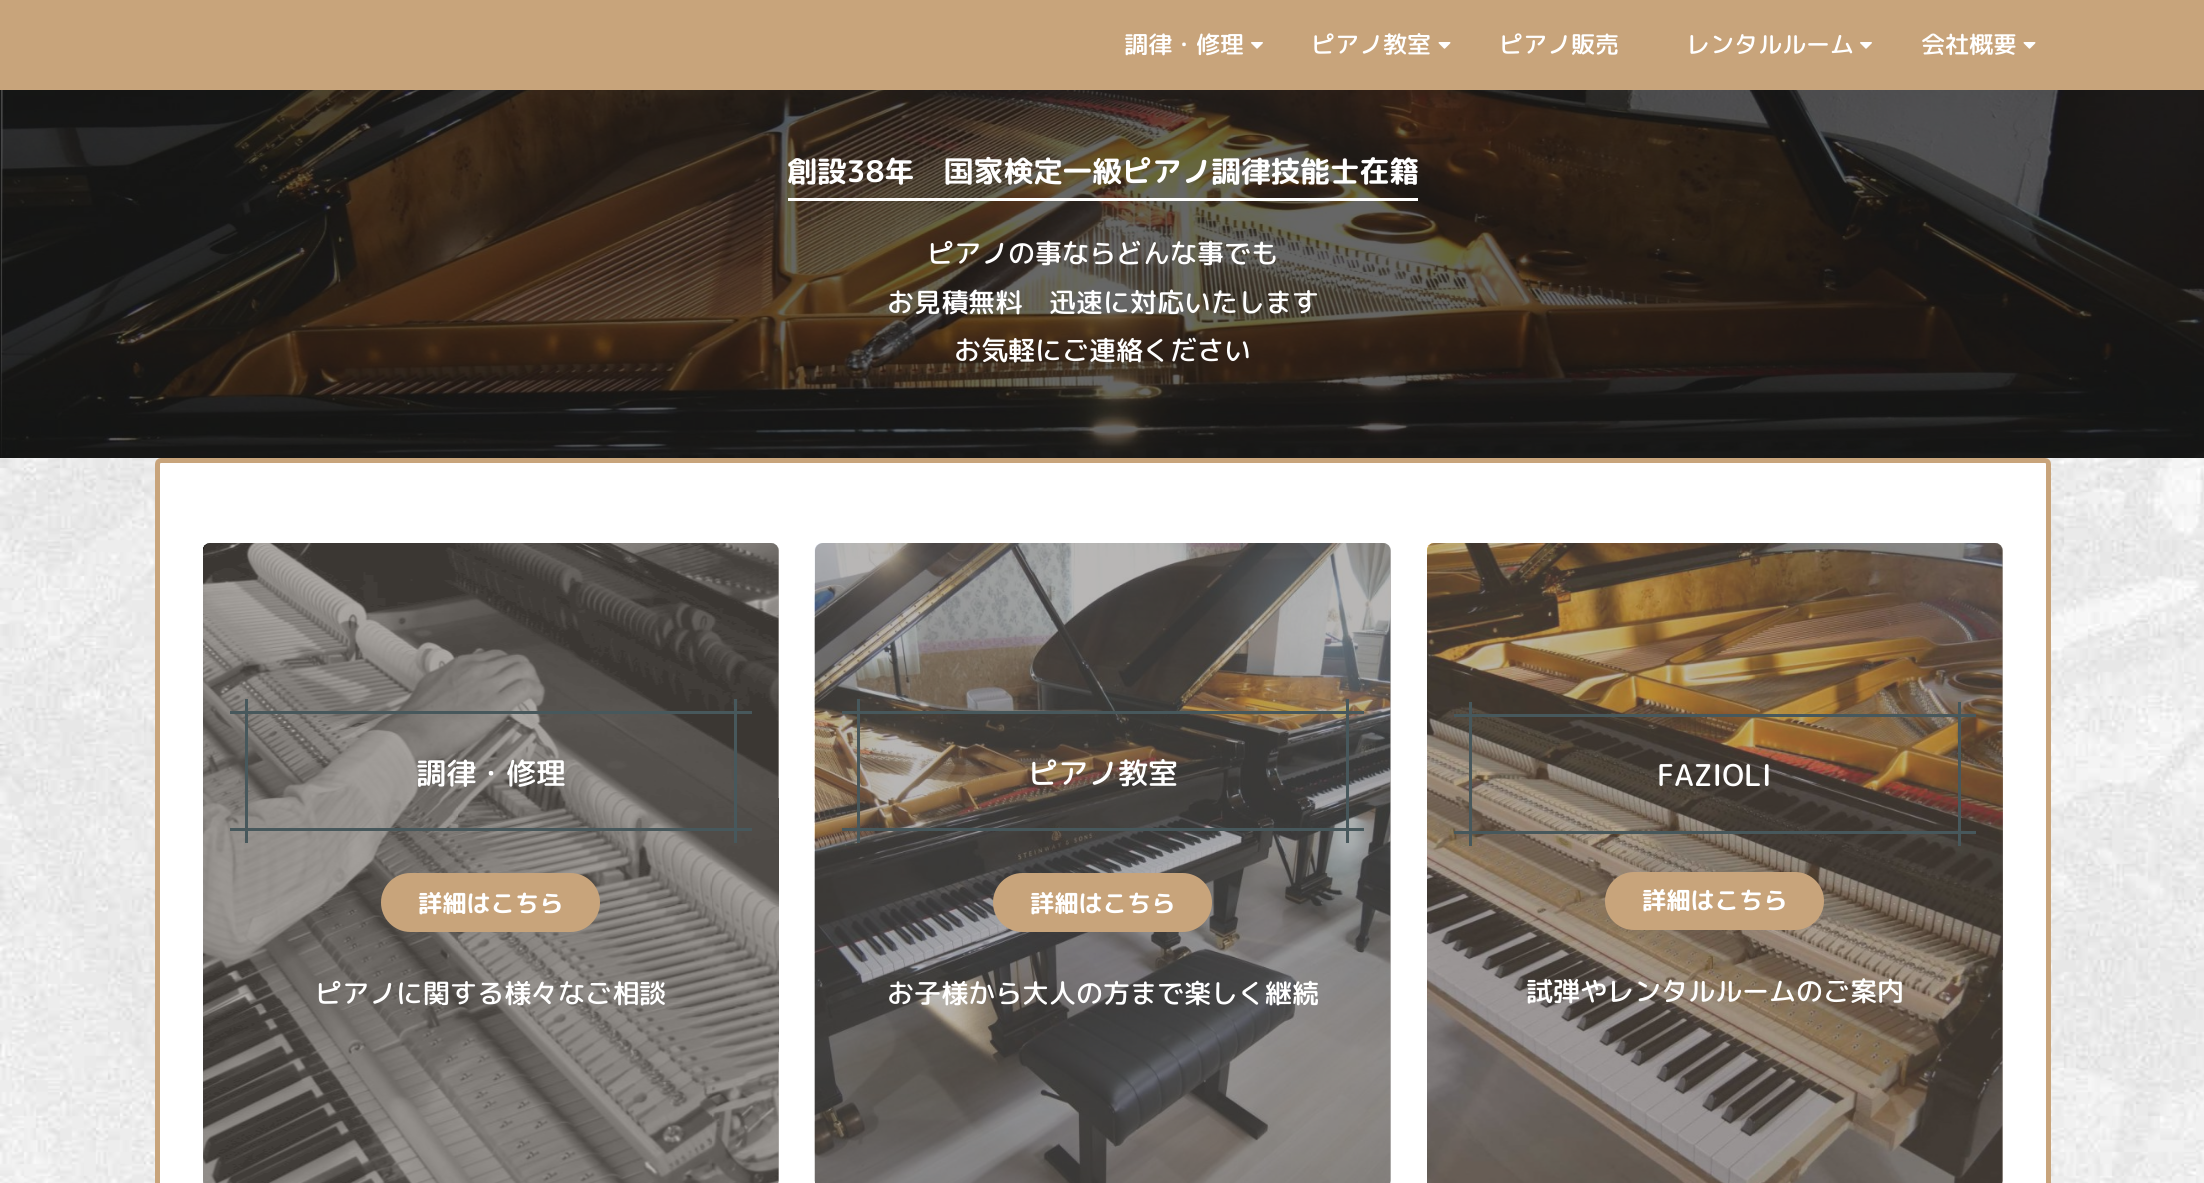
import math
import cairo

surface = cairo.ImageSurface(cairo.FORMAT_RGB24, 2204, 1183)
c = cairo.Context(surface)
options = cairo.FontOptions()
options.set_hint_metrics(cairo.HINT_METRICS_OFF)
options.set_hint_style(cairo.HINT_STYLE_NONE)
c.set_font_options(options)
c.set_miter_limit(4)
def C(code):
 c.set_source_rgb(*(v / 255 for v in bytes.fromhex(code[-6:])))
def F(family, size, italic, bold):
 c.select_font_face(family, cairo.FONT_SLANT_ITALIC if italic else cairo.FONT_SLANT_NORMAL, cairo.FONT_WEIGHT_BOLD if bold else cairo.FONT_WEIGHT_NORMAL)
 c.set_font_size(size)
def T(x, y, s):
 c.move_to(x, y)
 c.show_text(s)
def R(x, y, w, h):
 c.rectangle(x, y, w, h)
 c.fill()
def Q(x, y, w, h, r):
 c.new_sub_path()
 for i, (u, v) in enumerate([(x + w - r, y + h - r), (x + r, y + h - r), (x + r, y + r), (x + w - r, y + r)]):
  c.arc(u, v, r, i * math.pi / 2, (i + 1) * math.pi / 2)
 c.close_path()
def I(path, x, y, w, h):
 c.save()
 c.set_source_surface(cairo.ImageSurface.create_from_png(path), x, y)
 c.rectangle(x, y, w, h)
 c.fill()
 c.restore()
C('ffffff')
c.paint()
I('1.png',0,458,2204,725)
C('c8a47b')
R(0,0,2204,90)
F('Rounded Mplus 1c Medium',24,0,0)
C('ffffff')
T(1124,53,'調律・修理')
I('2.png',1251,42,12,7)
T(1311,53,'ピアノ教室')
I('3.png',1438,42,13,7)
T(1499,53,'ピアノ販売')
T(1686,53,'レンタルルーム')
I('2.png',1860,42,12,7)
T(1921,53,'会社概要')
I('3.png',2023,42,13,7)
I('4.png',0,90,2204,368)
R(788,198,630,3)
F('Rounded Mplus 1c Bold',29.7,0,1)
T(787,182,'創設38年　国家検定一級ピアノ調律技能士在籍')
F('Rounded Mplus 1c Medium',27,0,0)
T(927,263,'ピアノの事ならどんな事でも')
T(887,312,'お見積無料　迅速に対応いたします')
T(954,360,'お気軽にご連絡ください')
Q(157.5,460.5,1891,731,3.5)
c.fill_preserve()
C('c8a47b')
c.set_line_width(5)
c.stroke()
I('5.png',203,543,576,640)
c.set_source_rgba(0.467,0.431,0.404,0.5)
Q(203,543,576,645,8)
c.fill()
C('47585c')
R(230,711,522,3)
R(230,828,522,3)
R(245,699,3,144)
F('Rounded Mplus 1c Medium',30,0,0)
C('ffffff')
T(416,784,'調律・修理')
C('47585c')
R(734,699,3,144)
C('c8a47b')
Q(381,873,219,59,29.5)
c.fill()
F('Rounded Mplus 1c Bold',24.25,0,1)
C('ffffff')
T(418,912,'詳細はこちら')
F('Rounded Mplus 1c Medium',27,0,0)
T(315,1003,'ピアノに関する様々なご相談')
I('6.png',814,543,577,640)
c.set_source_rgba(0.451,0.435,0.424,0.5)
Q(815,543,576,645,8)
c.fill()
C('47585c')
R(842,711,522,3)
R(842,828,522,3)
R(857,699,3,144)
F('Rounded Mplus 1c Medium',30,0,0)
C('ffffff')
T(1028,784,'ピアノ教室')
C('47585c')
R(1346,699,3,144)
C('c8a47b')
Q(993,873,219,59,29.5)
c.fill()
F('Rounded Mplus 1c Bold',24.25,0,1)
C('ffffff')
T(1030,912,'詳細はこちら')
F('Rounded Mplus 1c Medium',27,0,0)
T(887,1003,'お子様から大人の方まで楽しく継続')
I('7.png',1427,543,576,640)
c.set_source_rgba(0.463,0.408,0.361,0.5)
Q(1427,543,576,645,8)
c.fill()
C('47585c')
R(1454,714,522,3)
R(1454,831,522,3)
R(1469,702,3,144)
F('Rounded Mplus 1c Medium',30,0,0)
C('ffffff')
T(1657,786,'FAZIOLI')
C('47585c')
R(1958,702,3,144)
C('c8a47b')
Q(1605,872,219,58,29)
c.fill()
F('Rounded Mplus 1c Bold',24.25,0,1)
C('ffffff')
T(1642,909,'詳細はこちら')
F('Rounded Mplus 1c Medium',27,0,0)
T(1526,1001,'試弾やレンタルルームのご案内')
surface.write_to_png('o.png')
